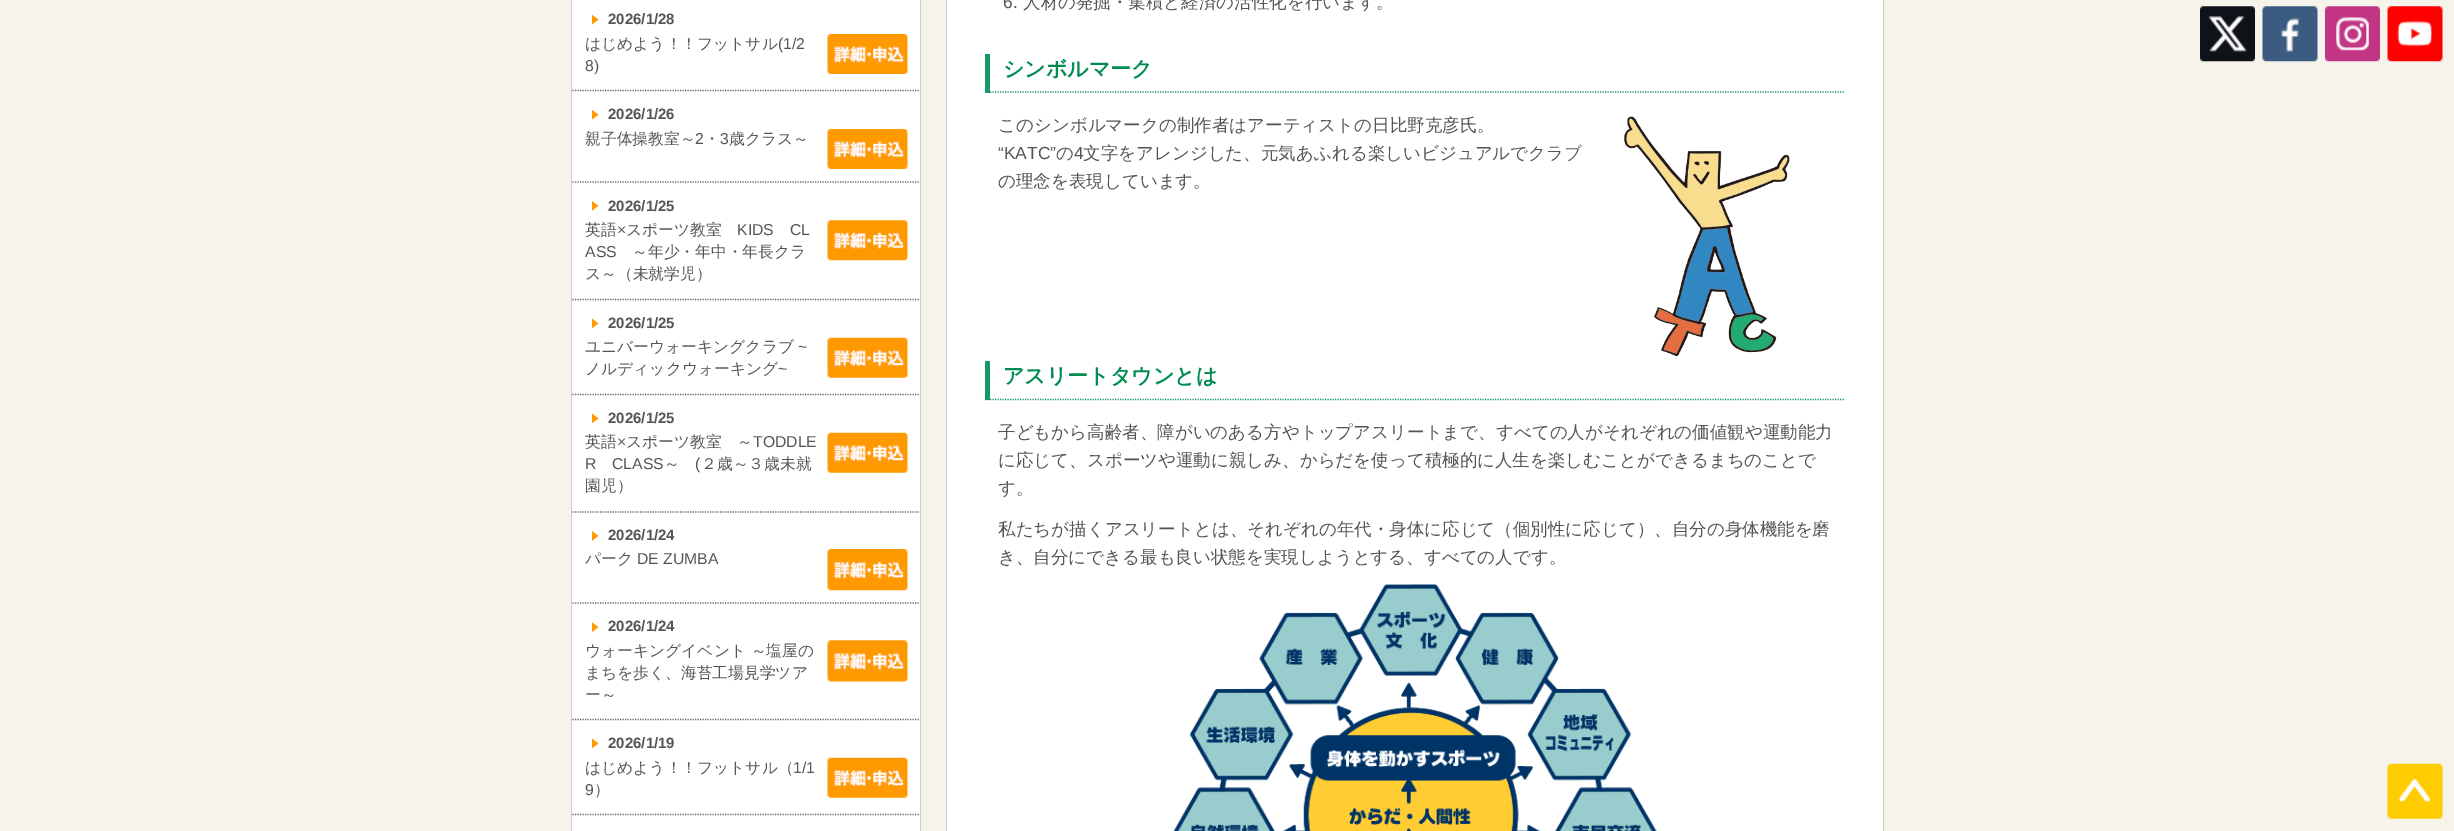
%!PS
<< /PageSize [2454 831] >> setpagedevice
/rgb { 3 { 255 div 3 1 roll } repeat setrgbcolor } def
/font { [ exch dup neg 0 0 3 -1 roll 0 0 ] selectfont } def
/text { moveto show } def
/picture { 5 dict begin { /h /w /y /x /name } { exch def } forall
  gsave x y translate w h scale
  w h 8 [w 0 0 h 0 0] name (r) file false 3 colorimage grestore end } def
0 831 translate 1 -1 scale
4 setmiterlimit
246 243 235 rgb
0 0 2454 831 rectfill
255 255 255 rgb
572 0 348 831 rectfill
204 204 204 rgb
920 0 1 831 rectfill
571 0 1 831 rectfill
102 102 102 rgb
1.2 setlinewidth
[1.25 1.25] 0 setdash
572.5 90.5 moveto 347.5 0 rlineto stroke
(img_01.rgb) 592 14 7 11 picture
(img_02.rgb) 827 34 81 40 picture
572.5 182 moveto 347.5 0 rlineto stroke
(img_01.rgb) 592 109 7 11 picture
(img_03.rgb) 827 129 81 40 picture
572.5 299.5 moveto 347.5 0 rlineto stroke
(img_04.rgb) 592 201 7 10 picture
(img_05.rgb) 827 220 81 41 picture
572.5 394.5 moveto 347.5 0 rlineto stroke
(img_06.rgb) 592 318 7 11 picture
(img_07.rgb) 827 337 81 41 picture
572.5 512 moveto 347.5 0 rlineto stroke
(img_08.rgb) 592 413 7 11 picture
(img_07.rgb) 827 432 81 41 picture
572.5 603 moveto 347.5 0 rlineto stroke
(img_04.rgb) 592 531 7 10 picture
(img_09.rgb) 827 549 81 42 picture
572.5 719.5 moveto 347.5 0 rlineto stroke
(img_10.rgb) 592 622 7 10 picture
(img_11.rgb) 827 640 81 42 picture
572.5 814.5 moveto 347.5 0 rlineto stroke
(img_06.rgb) 592 738 7 11 picture
(img_07.rgb) 827 757 81 41 picture
255 255 255 rgb
947 0 936 831 rectfill
204 204 204 rgb
1883 0 1 831 rectfill
946 0 1 831 rectfill
21 153 101 rgb
985 92 moveto 860 0 rlineto stroke
985 54 5 39 rectfill
(img_12.rgb) 1624 116 166 241 picture
985 399.5 moveto 860 0 rlineto stroke
985 361 5 39 rectfill
(img_13.rgb) 1173 584 484 247 picture
(img_14.rgb) 2200 6 55 56 picture
(img_15.rgb) 2262 6 56 56 picture
(img_16.rgb) 2325 6 55 56 picture
(img_17.rgb) 2387 6 56 56 picture
(img_18.rgb) 2387 763 56 56 picture
/LiberationSans-Bold 15 font
85 85 85 rgb
(2026/1/28) 608 24 text
/WenQuanYiZenHei-Medium 15.75 font
(はじめよう！！フットサル) 585 49 text
/LiberationSans-Regular 15.75 font
(\(1/2) 778 49 text
(8\)) 585 71 text
/LiberationSans-Bold 15 font
(2026/1/26) 608 119 text
/WenQuanYiZenHei-Medium 15.75 font
(親子体操教室～) 585 144 text
/LiberationSans-Regular 15.75 font
(2) 695 144 text
/WenQuanYiZenHei-Medium 15.75 font
(・) 704 144 text
/LiberationSans-Regular 15.75 font
(3) 720 144 text
/WenQuanYiZenHei-Medium 15.75 font
(歳クラス～) 729 144 text
/LiberationSans-Bold 15 font
(2026/1/25) 608 211 text
/WenQuanYiZenHei-Medium 15.75 font
(英語) 585 235 text
/LiberationSans-Regular 15.75 font
(×) 617 235 text
/WenQuanYiZenHei-Medium 15.75 font
(スポーツ教室) 626 235 text
/LiberationSans-Regular 15.75 font
(KIDS) 737 235 text
(CL) 790 235 text
(ASS) 585 257 text
/WenQuanYiZenHei-Medium 15.75 font
(～年少・年中・年長クラ) 632 257 text
(ス～（未就学児）) 585 279 text
/LiberationSans-Bold 15 font
(2026/1/25) 608 328 text
/WenQuanYiZenHei-Medium 15.75 font
(ユニバーウォーキングクラブ) 585 352 text
/LiberationSans-Regular 15.75 font
(~) 798 352 text
/WenQuanYiZenHei-Medium 15.75 font
(ノルディックウォーキング) 585 374 text
/LiberationSans-Regular 15.75 font
(~) 778 374 text
/LiberationSans-Bold 15 font
(2026/1/25) 608 423 text
/WenQuanYiZenHei-Medium 15.75 font
(英語) 585 447 text
/LiberationSans-Regular 15.75 font
(×) 617 447 text
/WenQuanYiZenHei-Medium 15.75 font
(スポーツ教室　～) 626 447 text
/LiberationSans-Regular 15.75 font
(TODDLE) 753 447 text
(R) 585 469 text
(CLASS) 612 469 text
/WenQuanYiZenHei-Medium 15.75 font
(～) 664 469 text
/LiberationSans-Regular 15.75 font
(\() 695 469 text
/WenQuanYiZenHei-Medium 15.75 font
(２歳～３歳未就) 701 469 text
(園児）) 585 491 text
/LiberationSans-Bold 15 font
(2026/1/24) 608 540 text
/WenQuanYiZenHei-Medium 15.75 font
(パーク) 585 564 text
/LiberationSans-Regular 15.75 font
(DE ZUMBA) 637 564 text
/LiberationSans-Bold 15 font
(2026/1/24) 608 631 text
/WenQuanYiZenHei-Medium 15.75 font
(ウォーキングイベント ～塩屋の) 585 656 text
(まちを歩く、海苔工場見学ツア) 585 678 text
(ー～) 585 700 text
/LiberationSans-Bold 15 font
(2026/1/19) 608 748 text
/WenQuanYiZenHei-Medium 15.75 font
(はじめよう！！フットサル（) 585 773 text
/LiberationSans-Regular 15.75 font
(1/1) 793 773 text
(9) 585 795 text
/WenQuanYiZenHei-Medium 15.75 font
(）) 594 795 text
/LiberationSans-Regular 17.5 font
(6.) 1003 8 text
/WenQuanYiZenHei-Medium 17.5 font
(人材の発掘・集積と経済の活性化を行います。) 1023 8 text
/WenQuanYiZenHei-Bold 21 font
0 139 80 rgb
(シンボルマーク) 1003 76 text
/WenQuanYiZenHei-Medium 17.5 font
85 85 85 rgb
(このシンボルマークの制作者はアーティストの日比野克彦氏。) 998 131 text
/LiberationSans-Regular 17.5 font
(“KATC”) 998 159 text
/WenQuanYiZenHei-Medium 17.5 font
(の) 1056 159 text
/LiberationSans-Regular 17.5 font
(4) 1074 159 text
/WenQuanYiZenHei-Medium 17.5 font
(文字をアレンジした、元気あふれる楽しいビジュアルでクラブ) 1083 159 text
(の理念を表現しています。) 998 187 text
/WenQuanYiZenHei-Bold 21 font
0 139 80 rgb
(アスリートタウンとは) 1003 383 text
/WenQuanYiZenHei-Medium 17.5 font
85 85 85 rgb
(子どもから高齢者、障がいのある方やトップアスリートまで、すべての人がそれぞれの価値観や運動能力) 998 438 text
(に応じて、スポーツや運動に親しみ、からだを使って積極的に人生を楽しむことができるまちのことで) 998 466 text
(す。) 998 494 text
(私たちが描くアスリートとは、それぞれの年代・身体に応じて（個別性に応じて）、自分の身体機能を磨) 998 535 text
(き、自分にできる最も良い状態を実現しようとする、すべての人です。) 998 563 text
showpage
